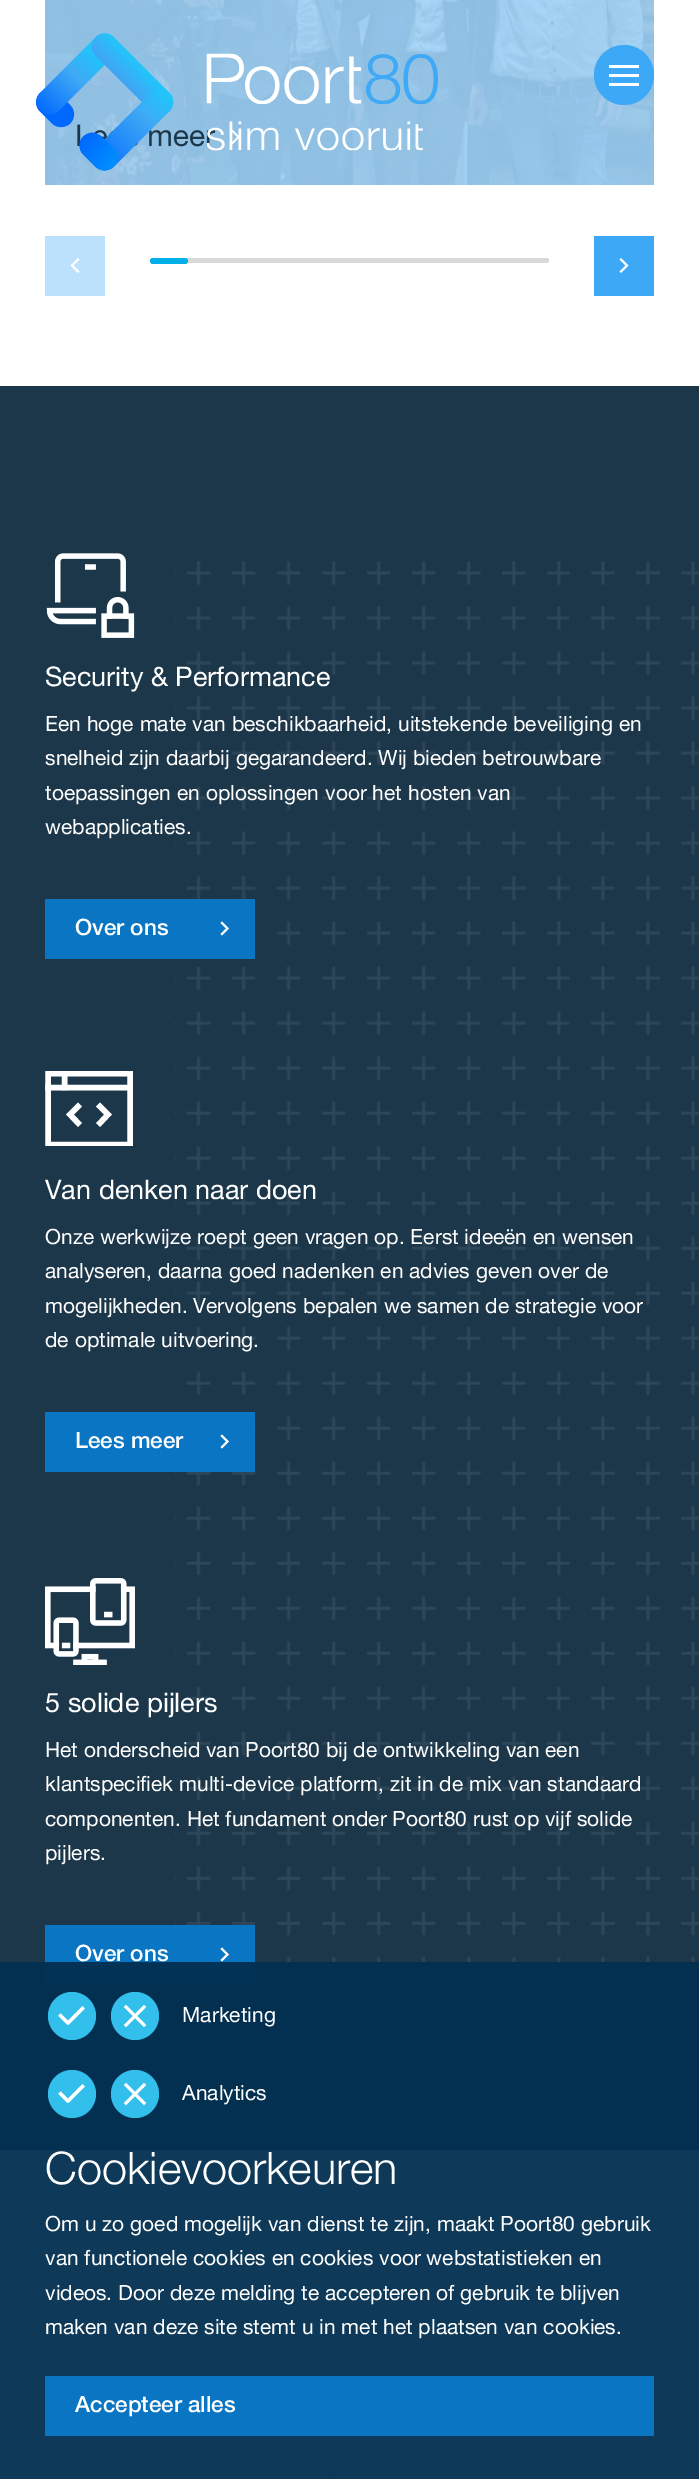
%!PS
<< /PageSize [699 2479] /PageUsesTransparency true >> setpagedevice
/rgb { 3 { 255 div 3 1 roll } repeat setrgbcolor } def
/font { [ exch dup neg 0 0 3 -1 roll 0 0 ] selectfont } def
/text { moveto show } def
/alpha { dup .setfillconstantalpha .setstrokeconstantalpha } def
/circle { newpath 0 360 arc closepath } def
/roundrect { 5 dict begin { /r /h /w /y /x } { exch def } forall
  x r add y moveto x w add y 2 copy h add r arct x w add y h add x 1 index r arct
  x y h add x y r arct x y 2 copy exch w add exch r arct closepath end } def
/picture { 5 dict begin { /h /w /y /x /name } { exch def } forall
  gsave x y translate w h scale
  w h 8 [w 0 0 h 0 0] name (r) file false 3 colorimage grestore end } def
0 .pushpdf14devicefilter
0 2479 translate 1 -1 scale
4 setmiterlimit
255 255 255 rgb
0 0 699 2479 rectfill
158 212 250 rgb
45 0 609 185 rectfill
(img_02.rgb) 45 0 609 185 picture
61 168 245 rgb
624 75 30 circle fill
255 255 255 rgb
609 65 30 3 rectfill
609 83 30 3 rectfill
609 74 30 3 rectfill
2 setlinewidth
2 setlinecap
232.5 131 moveto 6 6 rlineto -6 6 rlineto stroke
187 225 252 rgb
45 236 60 60 rectfill
255 255 255 rgb
78 271.5 moveto -6 -6 rlineto 6 -6 rlineto stroke
216 216 216 rgb
150 258 399 5 2.5 roundrect fill
0 175 231 rgb
150 258 38 6 3 roundrect fill
61 168 245 rgb
594 236 60 60 rectfill
255 255 255 rgb
621 259.5 moveto 6 6 rlineto -6 6 rlineto stroke
28 55 74 rgb
0 386 699 1764 rectfill
(img_03.rgb) 175 561 524 1588 picture
(img_04.rgb) 46 553 89 85 picture
10 117 194 rgb
45 899 210 60 rectfill
255 255 255 rgb
1.9 setlinewidth
222 923 moveto 5.5 5.5 rlineto -5.5 5.5 rlineto stroke
gsave
45 1071 90 75 rectclip
5.5 setlinewidth
48 1073.5 moveto 82 0 rlineto 0 71 rlineto -82 0 rlineto closepath stroke
grestore
5.5 setlinewidth
48 1087.5 moveto 82 0 rlineto stroke
gsave
45 1071 90 75 rectclip
64.5 1073.5 moveto 0 14 rlineto stroke
grestore
78 1106.5 moveto -8 8 rlineto 8 8.5 rlineto 100 1106.5 moveto 8 8 rlineto -8 8.5 rlineto stroke
10 117 194 rgb
45 1412 210 60 rectfill
255 255 255 rgb
1.9 setlinewidth
222 1436 moveto 5.5 5.5 rlineto -5.5 5.5 rlineto stroke
(img_05.rgb) 45 1578 90 87 picture
10 117 194 rgb
45 1925 210 60 rectfill
255 255 255 rgb
222 1949 moveto 5.5 5.5 rlineto -5.5 5.5 rlineto stroke
238 238 238 rgb
0 2150 699 329 rectfill
251 251 251 rgb
45 2436 609 43 rectfill
(img_06.rgb) 317 2478 25 1 picture
0.95 alpha
2 47 80 rgb
0 1962 699 517 rectfill
1 alpha
51 191 236 rgb
72 2016 24 circle fill
(img_07.rgb) 58 2006 27 19 picture
135 2016 24 circle fill
(img_08.rgb) 123 2004 24 24 picture
72 2094 24 circle fill
(img_07.rgb) 58 2084 27 19 picture
135 2094 24 circle fill
(img_08.rgb) 123 2082 24 24 picture
10 117 194 rgb
45 2376 609 60 rectfill
/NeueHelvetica-Regular 30 font
28 55 74 rgb
(mee) 147 146 text
(img_01.rgb) 36 33 402 138 picture
/NeueHelvetica-Regular 27 font
255 255 255 rgb
(Security & Performance) 45 686 text
/NeueHelvetica-Regular 21 font
(Een hoge mate van beschikbaarheid, uitstekende beveiliging en) 45 731 text
(snelheid zijn daarbij gegarandeerd. Wij bieden betrouwbare) 45 765 text
(toepassingen en oplossingen voor het hosten van) 45 800 text
(webapplicaties.) 45 834 text
/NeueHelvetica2-Regular 22.5 font
(Over ons) 75 935 text
/NeueHelvetica-Regular 27 font
(Van denken naar doen) 45 1199 text
/NeueHelvetica-Regular 21 font
(Onze werkwijze roept geen vragen op. Eerst ideeën en wensen) 45 1244 text
(analyseren, daarna goed nadenken en advies geven over de) 45 1278 text
(mogelijkheden. Vervolgens bepalen we samen de strategie voor) 45 1313 text
(de optimale uitvoering.) 45 1347 text
/NeueHelvetica2-Regular 22.5 font
(Lees meer) 75 1448 text
/NeueHelvetica-Regular 27 font
(5 solide pijlers) 45 1712 text
/NeueHelvetica-Regular 21 font
(Het onderscheid van Poort80 bij de ontwikkeling van een) 45 1757 text
(klantspecifiek multi-device platform, zit in de mix van standaard) 45 1791 text
(componenten. Het fundament onder Poort80 rust op vijf solide) 45 1826 text
(pijlers.) 45 1860 text
/NeueHelvetica2-Regular 22.5 font
(Over ons) 75 1961 text
/NeueHelvetica-Regular 21 font
(Marketing) 182 2022 text
(Analytics) 182 2100 text
/NeueHelvetica-Light 45 font
(Cookievoorkeuren) 45 2184 text
/NeueHelvetica-Regular 21 font
(Om u zo goed mogelijk van dienst te zijn, maakt Poort80 gebruik) 45 2231 text
(van functionele cookies en cookies voor webstatistieken en) 45 2265 text
(videos. Door deze melding te accepteren of gebruik te blijven) 45 2300 text
(maken van deze site stemt u in met het plaatsen van cookies.) 45 2334 text
/NeueHelvetica2-Regular 22.5 font
(Accepteer alles) 75 2412 text
.poppdf14devicefilter showpage
